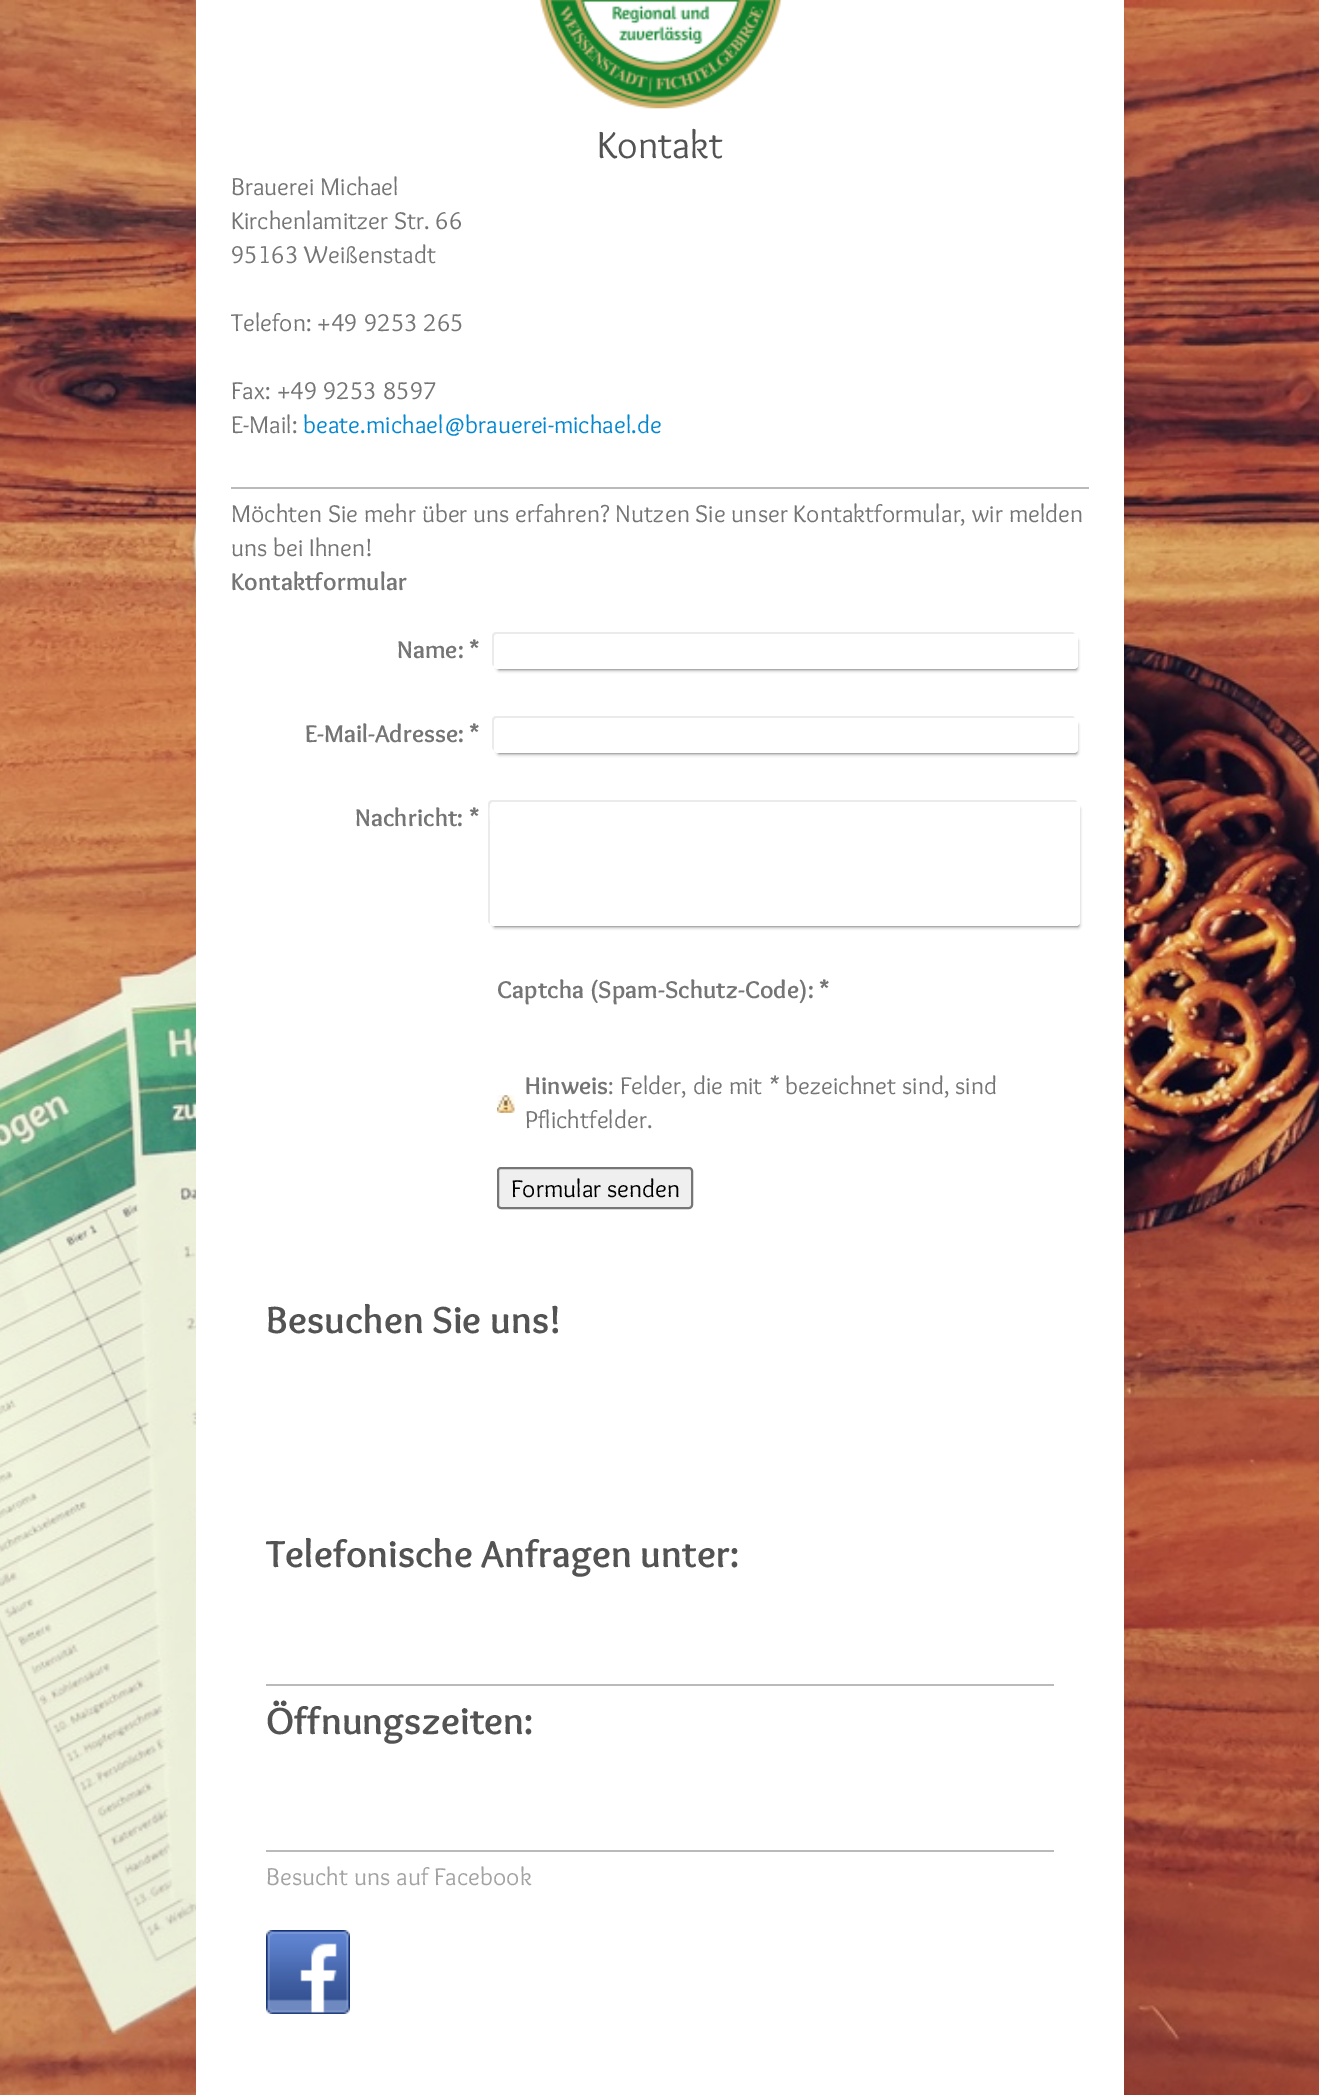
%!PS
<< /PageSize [1319 2095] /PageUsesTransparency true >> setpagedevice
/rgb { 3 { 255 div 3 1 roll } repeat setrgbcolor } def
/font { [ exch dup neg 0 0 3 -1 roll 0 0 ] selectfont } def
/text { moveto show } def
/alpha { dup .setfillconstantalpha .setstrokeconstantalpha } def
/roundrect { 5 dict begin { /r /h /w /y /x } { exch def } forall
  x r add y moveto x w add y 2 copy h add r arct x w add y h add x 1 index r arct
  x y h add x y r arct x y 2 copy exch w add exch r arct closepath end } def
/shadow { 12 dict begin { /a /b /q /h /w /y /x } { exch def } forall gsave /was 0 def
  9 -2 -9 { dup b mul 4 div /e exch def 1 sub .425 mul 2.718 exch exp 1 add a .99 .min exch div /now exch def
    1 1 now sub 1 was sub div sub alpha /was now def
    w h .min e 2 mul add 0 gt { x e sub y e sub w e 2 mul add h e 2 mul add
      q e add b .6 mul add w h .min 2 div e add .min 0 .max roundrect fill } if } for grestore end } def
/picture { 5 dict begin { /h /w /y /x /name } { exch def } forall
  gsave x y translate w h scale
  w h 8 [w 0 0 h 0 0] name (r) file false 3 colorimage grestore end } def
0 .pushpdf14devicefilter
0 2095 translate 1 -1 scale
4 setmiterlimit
255 255 255 rgb
0 0 1319 2095 rectfill
(img_01.rgb) 0 0 1319 2095 picture
196 0 928 2095 rectfill
(img_02.rgb) 539 0 243 109 picture
186 186 186 rgb
231 487 858 2 rectfill
235 235 235 rgb
496 632 moveto -2 0 -4 2 -4 4 rcurveto 0 27 rlineto 0 1 1 3 2 3 rcurveto 0 -24 rlineto 0 -3 -1 -8 3 -8 rcurveto 578 0 rlineto -1 -1 -2 -2 -3 -2 rcurveto closepath fill
0 0 0 rgb
499 641 577 28 0 2 0.8 shadow
255 255 255 rgb
494 634 584 35 4 roundrect fill
235 235 235 rgb
496 716 moveto -2 0 -4 2 -4 4 rcurveto 0 27 rlineto 0 1 1 3 2 3 rcurveto 0 -24 rlineto 0 -3 -1 -8 3 -8 rcurveto 578 0 rlineto -1 -1 -2 -2 -3 -2 rcurveto closepath fill
0 0 0 rgb
499 725 577 28 0 2 0.8 shadow
255 255 255 rgb
494 718 584 35 4 roundrect fill
235 235 235 rgb
492 800 moveto -2 0 -4 2 -4 4 rcurveto 0 116 rlineto 0 2 1 3 2 4 rcurveto 0 -99 rlineto 0 -8 -3 -23 4 -23 rcurveto 583 0 rlineto 0 -1 -2 -2 -3 -2 rcurveto closepath fill
0 0 0 rgb
495 809 583 117 0 2 0.8 shadow
255 255 255 rgb
490 802 590 124 4 roundrect fill
(img_03.rgb) 497 1095 18 18 picture
239 239 239 rgb
498 1168 194 40 3 roundrect gsave fill grestore
118 118 118 rgb
2 setlinewidth
stroke
186 186 186 rgb
266 1684 788 2 rectfill
266 1850 788 2 rectfill
(img_04.rgb) 266 1930 84 84 picture
/Overlock-Regular 39.25 font
83 83 83 rgb
(Kontakt) 597 158 text
/Overlock-Regular 25.2 font
117 117 117 rgb
(Brauerei Michael) 231 195 text
(Kirchenlamitzer Str. 66) 231 229 text
(95163 Weißenstadt) 231 263 text
(Telefon: +49 9253 265) 231 331 text
(Fax: +49 9253 8597) 231 399 text
(E-Mail:) 231 433 text
6 136 209 rgb
(beate.michael@brauerei-michael.de) 303 433 text
117 117 117 rgb
(Möchten Sie mehr über uns erfahren? Nutzen Sie unser Kontaktformular, wir melden) 231 522 text
(uns bei Ihnen!) 231 556 text
/Overlock-Bold 25.2 font
(Kontaktformular) 231 590 text
(Name: *) 397 658 text
(E-Mail-Adresse: *) 305 742 text
(Nachricht: *) 355 826 text
(Captcha \(Spam-Schutz-Code\): *) 497 998 text
(Hinweis) 525 1094 text
/Overlock-Regular 25.2 font
(: Felder, die mit) 608 1094 text
/Overlock-Italic 25.2 font
(*) 768 1094 text
/Overlock-Regular 25.2 font
(bezeichnet sind, sind) 785 1094 text
(Pflichtfelder.) 525 1128 text
0 0 0 rgb
(Formular senden) 511 1197 text
/Overlock-Bold 39.25 font
83 83 83 rgb
(Besuchen Sie uns!) 266 1333 text
(Telefonische Anfragen unter:) 266 1567 text
(Öffnungszeiten:) 266 1734 text
/Overlock-Regular 25.2 font
163 163 163 rgb
(Besucht uns auf Facebook) 266 1885 text
.poppdf14devicefilter showpage
